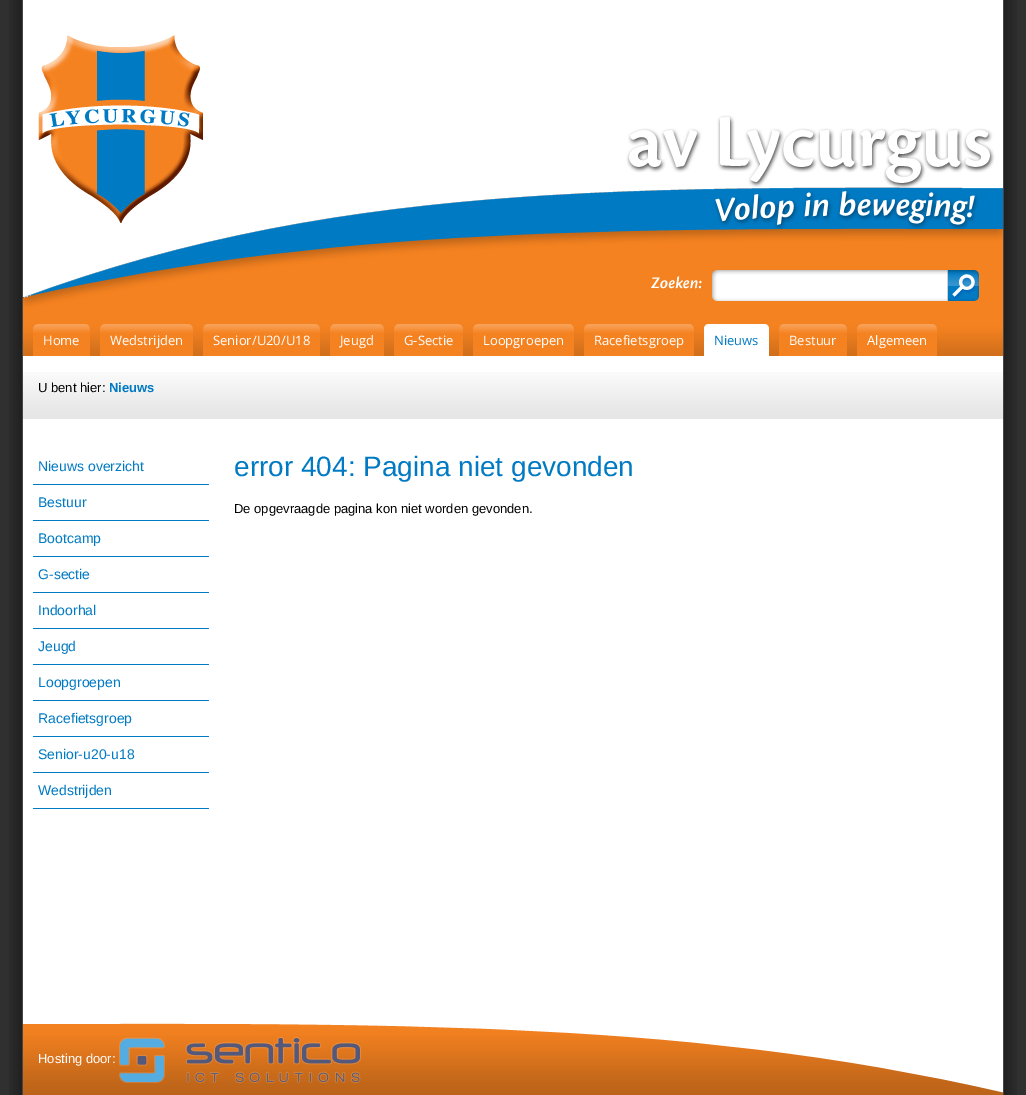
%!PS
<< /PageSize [1026 1095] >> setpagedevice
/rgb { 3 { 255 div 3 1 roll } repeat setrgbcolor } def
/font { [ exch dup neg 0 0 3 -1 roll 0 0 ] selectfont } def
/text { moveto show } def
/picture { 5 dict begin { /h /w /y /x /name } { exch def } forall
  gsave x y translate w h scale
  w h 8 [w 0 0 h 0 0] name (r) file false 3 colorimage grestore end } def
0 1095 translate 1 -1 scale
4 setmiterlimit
48 48 48 rgb
0 0 1026 1095 rectfill
(img_01.rgb) 9 0 1008 1095 picture
(img_02.rgb) 23 187 980 137 picture
(img_03.rgb) 38 35 165 188 picture
(img_04.rgb) 626 115 369 74 picture
(img_05.rgb) 651 276 51 13 picture
(img_06.rgb) 712 270 235 31 picture
(img_07.rgb) 947 270 32 31 picture
(img_08.rgb) 23 324 980 32 picture
(img_09.rgb) 33 324 57 32 picture
(img_10.rgb) 100 324 93 32 picture
(img_11.rgb) 203 324 117 32 picture
(img_12.rgb) 330 324 54 32 picture
(img_13.rgb) 394 324 69 32 picture
(img_14.rgb) 473 324 101 32 picture
(img_15.rgb) 584 324 110 32 picture
255 255 255 rgb
709 324 moveto 55 0 rlineto 3 0 5 2 5 5 rcurveto 0 27 rlineto -65 0 rlineto 0 -27 rlineto 0 -3 2 -5 5 -5 rcurveto closepath fill
(img_16.rgb) 779 324 68 32 picture
(img_17.rgb) 857 324 80 32 picture
(img_18.rgb) 23 372 980 47 picture
0 122 195 rgb
33 484 176 1 rectfill
33 520 176 1 rectfill
33 556 176 1 rectfill
33 592 176 1 rectfill
33 628 176 1 rectfill
33 664 176 1 rectfill
33 700 176 1 rectfill
33 736 176 1 rectfill
33 772 176 1 rectfill
33 808 176 1 rectfill
(img_19.rgb) 23 1023 980 72 picture
(img_20.rgb) 119 1037 242 46 picture
/OpenSans-Regular 13 font
255 255 255 rgb
(Home) 43 345 text
(Wedstrijden) 110 345 text
(Senior/U20/U18) 213 345 text
(Jeugd) 340 345 text
(G-Sectie) 404 345 text
(Loopgroepen) 483 345 text
(Racefietsgroep) 594 345 text
0 122 195 rgb
(Nieuws) 714 345 text
255 255 255 rgb
(Bestuur) 789 345 text
(Algemeen) 867 345 text
/LiberationSans-Regular 13 font
0 0 0 rgb
(U bent hier:) 38 392 text
/LiberationSans-Bold 13 font
0 122 195 rgb
(Nieuws) 109 392 text
/LiberationSans-Regular 14 font
(Nieuws overzicht) 38 471 text
(Bestuur) 38 507 text
(Bootcamp) 38 543 text
(G-sectie) 38 579 text
(Indoorhal) 38 615 text
(Jeugd) 38 651 text
(Loopgroepen) 38 687 text
(Racefietsgroep) 38 723 text
(Senior-u20-u18) 38 759 text
(Wedstrijden) 38 795 text
/LiberationSans-Regular 28 font
(error 404: Pagina niet gevonden) 234 476 text
/LiberationSans-Regular 13 font
0 0 0 rgb
(De opgevraagde pagina kon niet worden gevonden.) 234 513 text
255 255 255 rgb
(Hosting door:) 38 1063 text
showpage
